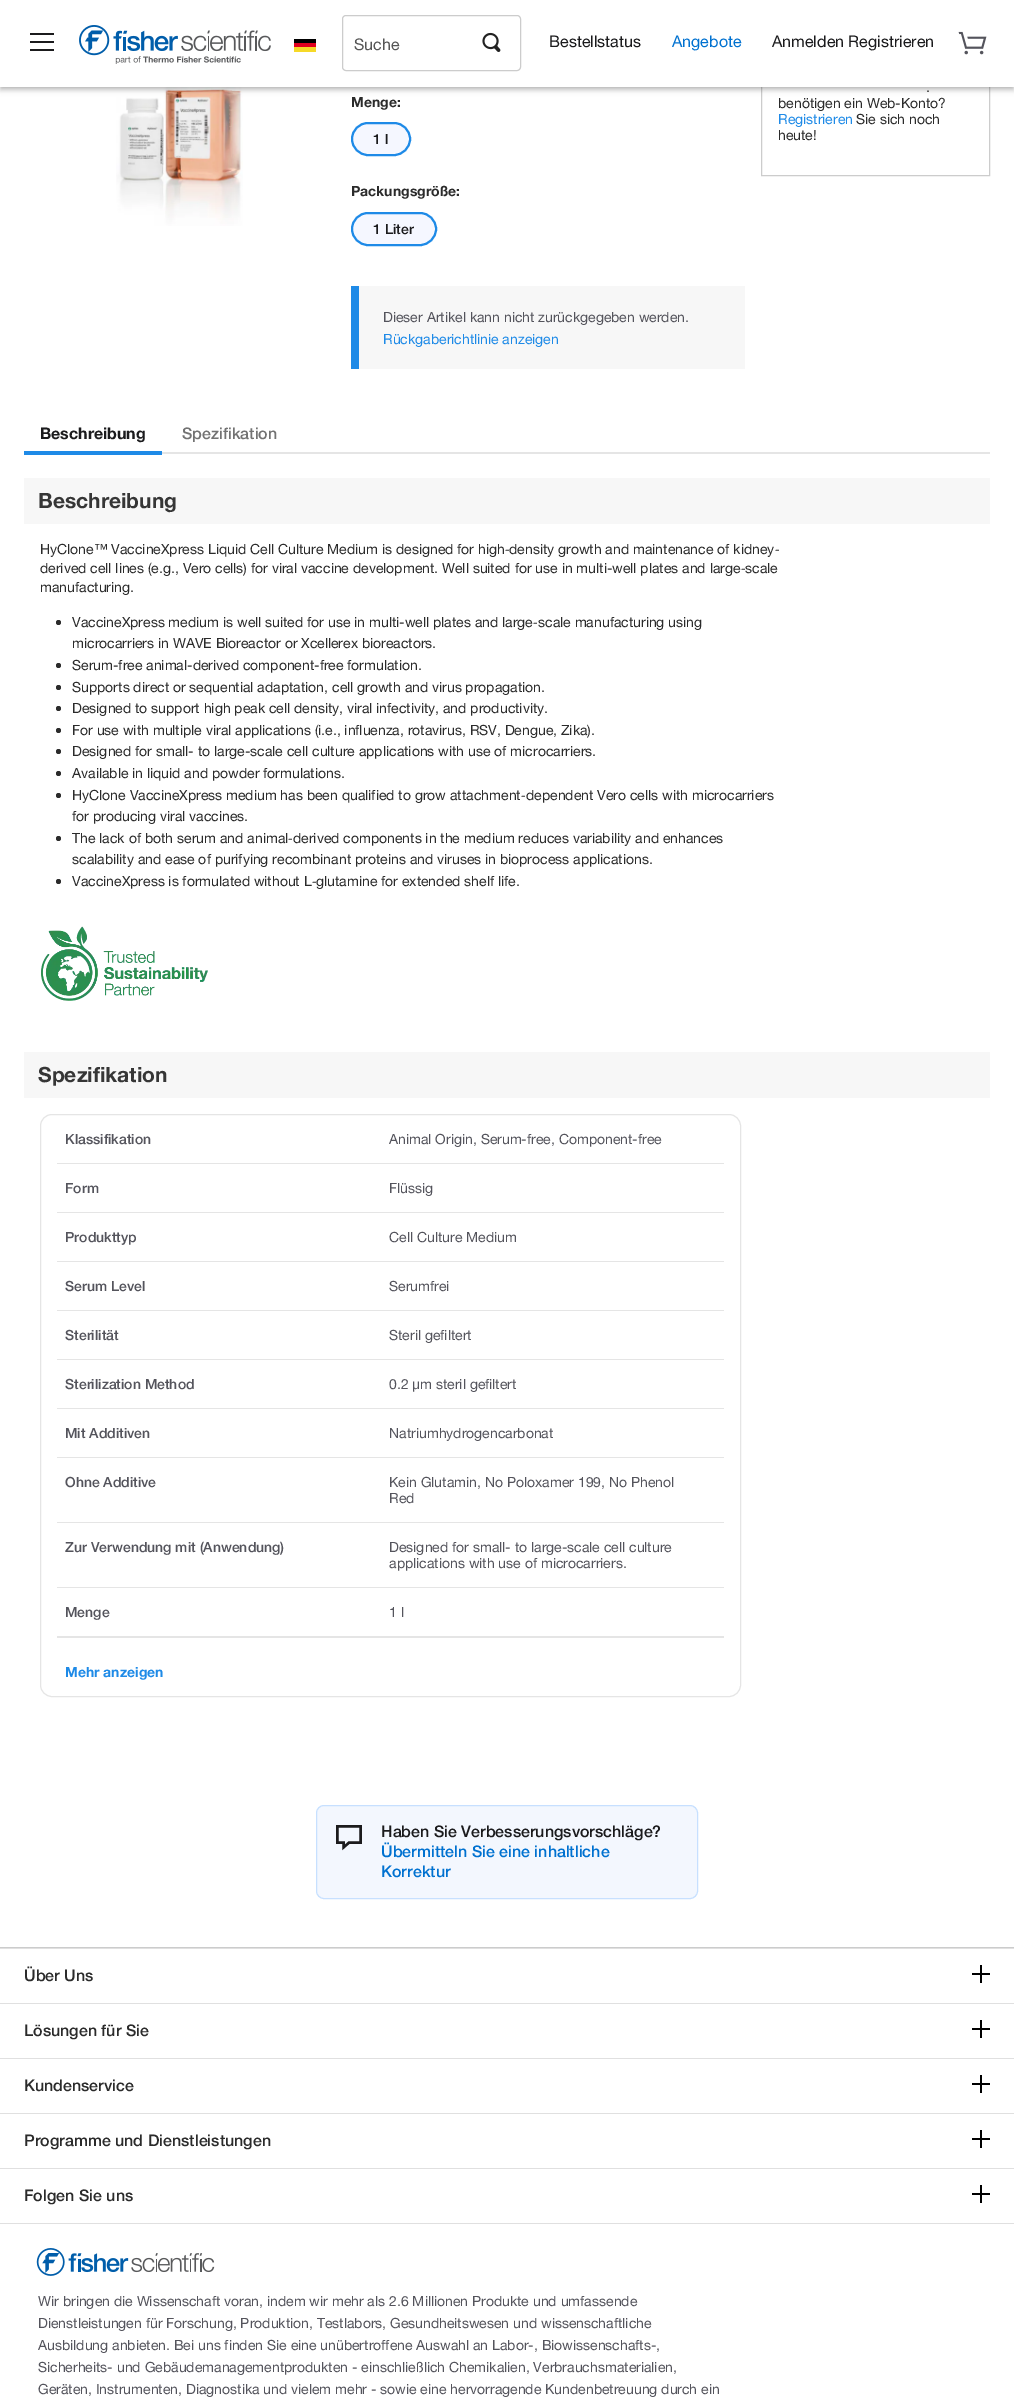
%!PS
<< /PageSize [1014 2398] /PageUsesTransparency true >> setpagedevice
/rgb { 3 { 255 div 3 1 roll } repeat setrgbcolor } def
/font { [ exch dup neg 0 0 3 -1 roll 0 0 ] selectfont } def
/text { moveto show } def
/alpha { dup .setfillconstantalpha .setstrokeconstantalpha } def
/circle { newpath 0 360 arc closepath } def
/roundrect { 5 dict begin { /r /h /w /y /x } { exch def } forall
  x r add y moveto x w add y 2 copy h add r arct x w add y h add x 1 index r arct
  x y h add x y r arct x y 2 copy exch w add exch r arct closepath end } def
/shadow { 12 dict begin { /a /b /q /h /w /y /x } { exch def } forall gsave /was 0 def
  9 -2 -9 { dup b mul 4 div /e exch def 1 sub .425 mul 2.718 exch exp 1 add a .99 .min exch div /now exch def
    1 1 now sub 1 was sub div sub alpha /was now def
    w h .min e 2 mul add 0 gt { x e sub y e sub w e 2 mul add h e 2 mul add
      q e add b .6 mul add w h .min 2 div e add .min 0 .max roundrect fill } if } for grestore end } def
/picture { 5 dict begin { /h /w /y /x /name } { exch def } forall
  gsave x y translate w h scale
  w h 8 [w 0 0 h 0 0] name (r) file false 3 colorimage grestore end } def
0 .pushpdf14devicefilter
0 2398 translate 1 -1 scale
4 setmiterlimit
255 255 255 rgb
0 0 1014 2398 rectfill
(img_04.rgb) 116 87 127 139 picture
204 204 204 rgb
761.5 -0.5 228 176 rectstroke
0 0 0 rgb
0 4 1014 87 0 2.5 0.14 shadow
1 3 1012 85 0 2 0.2 shadow
255 255 255 rgb
0 0 1014 87 rectfill
27 27 29 rgb
30 41 24 2 rectfill
30 33 24 2 rectfill
30 49 24 2 rectfill
(img_01.rgb) 79 25 192 39 picture
246 217 40 rgb
294 47 22 5 rectfill
225 0 31 rgb
294 43 22 4 rectfill
0 0 0 rgb
294 39 22 4 rectfill
204 204 204 rgb
342.5 15.5 178 55 3.5 roundrect stroke
(img_02.rgb) 482 32 19 20 picture
(img_03.rgb) 958 31 29 24 picture
245 247 255 rgb
352 123 58 32 16 roundrect gsave fill grestore
30 138 231 rgb
2 setlinewidth
stroke
245 247 255 rgb
352 213 84 32 16 roundrect gsave fill grestore
30 138 231 rgb
stroke
247 247 247 rgb
359 286 386 83 rectfill
30 138 231 rgb
351 286 8 83 rectfill
229 229 229 rgb
162 452 828 2 rectfill
30 138 231 rgb
24 451 138 4 rectfill
247 247 247 rgb
24 478 966 46 rectfill
43 43 43 rgb
58.5 622.5 2.5 circle fill
58.5 665.5 2.5 circle fill
58.5 687.5 2.5 circle fill
58.5 708.5 2.5 circle fill
58.5 730.5 2.5 circle fill
58.5 751.5 2.5 circle fill
58.5 773.5 2.5 circle fill
58.5 795.5 2.5 circle fill
58.5 838.5 2.5 circle fill
58.5 881.5 2.5 circle fill
(img_05.rgb) 41 926 167 75 picture
247 247 247 rgb
24 1052 966 46 rectfill
229 229 229 rgb
1 setlinewidth
40.5 1114.5 700 582 11.5 roundrect stroke
57 1163 667 1 rectfill
57 1212 667 1 rectfill
57 1261 667 1 rectfill
57 1310 667 1 rectfill
57 1359 667 1 rectfill
57 1408 667 1 rectfill
57 1457 667 1 rectfill
57 1522 667 1 rectfill
57 1587 667 1 rectfill
57 1636 667 2 rectfill
243 247 254 rgb
316.5 1805.5 381 93 7.5 roundrect gsave fill grestore
199 224 255 rgb
stroke
(img_06.rgb) 336 1825 26 26 picture
204 204 204 rgb
0 1947 1014 1 rectfill
224 224 224 rgb
0 1948 1014 1 rectfill
0 2003 1014 1 rectfill
0 0 0 rgb
980 1965 2 18 rectfill
972 1973 18 2 rectfill
224 224 224 rgb
0 2058 1014 1 rectfill
0 0 0 rgb
980 2020 2 18 rectfill
972 2028 18 2 rectfill
224 224 224 rgb
0 2113 1014 1 rectfill
0 0 0 rgb
980 2075 2 18 rectfill
972 2083 18 2 rectfill
224 224 224 rgb
0 2168 1014 1 rectfill
0 0 0 rgb
980 2130 2 18 rectfill
972 2138 18 2 rectfill
224 224 224 rgb
0 2223 1014 1 rectfill
0 0 0 rgb
980 2185 2 18 rectfill
972 2193 18 2 rectfill
(img_07.rgb) 36 2248 179 28 picture
/HelveticaNeue-Regular 16 font
86 86 86 rgb
(Suche) 354 50 text
27 27 29 rgb
(Bestellstatus) 549 47 text
0 113 208 rgb
(Angebote) 672 47 text
27 27 29 rgb
(Anmelden Registrieren) 772 47 text
/HelveticaNeue-Bold 14 font
43 43 43 rgb
(Menge:) 351 107 text
/HelveticaNeue-Medium 14 font
27 27 29 rgb
(1 l) 373 144 text
/HelveticaNeue-Bold 14 font
43 43 43 rgb
(Packungsgröße:) 351 196 text
/HelveticaNeue-Medium 14 font
27 27 29 rgb
(1 Liter) 373 234 text
/HelveticaNeue-Regular 14 font
84 84 92 rgb
(Dieser Artikel kann nicht zurückgegeben werden.) 383 322 text
30 138 231 rgb
(Rückgaberichtlinie anzeigen) 383 344 text
43 43 43 rgb
(.) 926 92 text
(benötigen ein Web-Konto?) 778 108 text
30 138 231 rgb
(Registrieren) 778 124 text
43 43 43 rgb
(Sie sich noch) 856 124 text
(heute!) 778 140 text
/HelveticaNeue-Bold 16 font
27 27 29 rgb
(Beschreibung) 40 439 text
/HelveticaNeue-Medium 16 font
115 115 115 rgb
(Spezifikation) 182 439 text
/HelveticaNeue-Bold 21 font
54 54 54 rgb
(Beschreibung) 38 508 text
/HelveticaNeue-Regular 14 font
43 43 43 rgb
(HyClone™ VaccineXpress Liquid Cell Culture Medium is designed for high) 40 554 text
/LiberationSans-Regular 14 font
(‐) 505 554 text
/HelveticaNeue-Regular 14 font
(density growth and maintenance of kidney) 509 554 text
/LiberationSans-Regular 14 font
(‐) 775 554 text
/HelveticaNeue-Regular 14 font
(derived cell lines \(e.g., Vero cells\) for viral vaccine development. Well suited for use in multi-well plates and large) 40 573 text
/LiberationSans-Regular 14 font
(‐) 741 573 text
/HelveticaNeue-Regular 14 font
(scale) 745 573 text
(manufacturing.) 40 592 text
(VaccineXpress medium is well suited for use in multi-well plates and large) 72 627 text
/LiberationSans-Regular 14 font
(‐) 533 627 text
/HelveticaNeue-Regular 14 font
(scale manufacturing using) 538 627 text
(microcarriers in WAVE Bioreactor or Xcellerex bioreactors.) 72 648 text
(Serum-free animal-derived component-free formulation.) 72 670 text
(Supports direct or sequential adaptation, cell growth and virus propagation.) 72 692 text
(Designed to support high peak cell density, viral infectivity, and productivity.) 72 713 text
(For use with multiple viral applications \(i.e., influenza, rotavirus, RSV, Dengue, Zika\).) 72 735 text
(Designed for small- to large-scale cell culture applications with use of microcarriers.) 72 756 text
(Available in liquid and powder formulations.) 72 778 text
(HyClone VaccineXpress medium has been qualified to grow attachment) 72 800 text
/LiberationSans-Regular 14 font
(‐) 521 800 text
/HelveticaNeue-Regular 14 font
(dependent Vero cells with microcarriers) 526 800 text
(for producing viral vaccines.) 72 821 text
(The lack of both serum and animal) 72 843 text
/LiberationSans-Regular 14 font
(‐) 288 843 text
/HelveticaNeue-Regular 14 font
(derived components in the medium reduces variability and enhances) 293 843 text
(scalability and ease of purifying recombinant proteins and viruses in bioprocess applications.) 72 864 text
(VaccineXpress is formulated without L) 72 886 text
/LiberationSans-Regular 14 font
(‐) 312 886 text
/HelveticaNeue-Regular 14 font
(glutamine for extended shelf life.) 316 886 text
/HelveticaNeue-Bold 21 font
54 54 54 rgb
(Spezifikation) 38 1082 text
/HelveticaNeue-Medium 14 font
84 84 92 rgb
(Klassifikation) 65 1144 text
/HelveticaNeue-Regular 14 font
(Animal Origin, Serum-free, Component-free) 389 1144 text
/HelveticaNeue-Medium 14 font
(Form) 65 1193 text
/HelveticaNeue-Regular 14 font
(Flüssig) 389 1193 text
/HelveticaNeue-Medium 14 font
(Produkttyp) 65 1242 text
/HelveticaNeue-Regular 14 font
(Cell Culture Medium) 389 1242 text
/HelveticaNeue-Medium 14 font
(Serum Level) 65 1291 text
/HelveticaNeue-Regular 14 font
(Serumfrei) 389 1291 text
/HelveticaNeue-Medium 14 font
(Sterilität) 65 1340 text
/HelveticaNeue-Regular 14 font
(Steril gefiltert) 389 1340 text
/HelveticaNeue-Medium 14 font
(Sterilization Method) 65 1389 text
/HelveticaNeue-Regular 14 font
(0.2) 389 1389 text
/LiberationSans-Regular 14 font
(μ) 412 1389 text
/HelveticaNeue-Regular 14 font
(m steril gefiltert) 420 1389 text
/HelveticaNeue-Medium 14 font
(Mit Additiven) 65 1438 text
/HelveticaNeue-Regular 14 font
(Natriumhydrogencarbonat) 389 1438 text
/HelveticaNeue-Medium 14 font
(Ohne Additive) 65 1487 text
/HelveticaNeue-Regular 14 font
(Kein Glutamin, No Poloxamer 199, No Phenol) 389 1487 text
(Red) 389 1503 text
/HelveticaNeue-Medium 14 font
(Zur Verwendung mit \(Anwendung\)) 65 1552 text
/HelveticaNeue-Regular 14 font
(Designed for small- to large-scale cell culture) 389 1552 text
(applications with use of microcarriers.) 389 1568 text
/HelveticaNeue-Medium 14 font
(Menge) 65 1617 text
/HelveticaNeue-Regular 14 font
(1 l) 389 1617 text
/HelveticaNeue-Bold 14 font
30 138 231 rgb
(Mehr anzeigen) 65 1677 text
/HelveticaNeue-Medium 16 font
27 27 29 rgb
(Haben Sie Verbesserungsvorschläge?) 381 1837 text
0 113 208 rgb
(Übermitteln Sie eine inhaltliche) 381 1857 text
(Korrektur) 381 1877 text
43 43 43 rgb
(Über Uns) 24 1981 text
(Lösungen für Sie) 24 2036 text
(Kundenservice) 24 2091 text
(Programme und Dienstleistungen) 24 2146 text
(Folgen Sie uns) 24 2201 text
/HelveticaNeue-Regular 14 font
84 84 92 rgb
(Wir bringen die Wissenschaft voran, indem wir mehr als 2.6 Millionen Produkte und umfassende) 38 2306 text
(Dienstleistungen für Forschung, Produktion, Testlabors, Gesundheitswesen und wissenschaftliche) 38 2328 text
(Ausbildung anbieten. Bei uns finden Sie eine unübertroffene Auswahl an Labor-, Biowissenschafts-,) 38 2350 text
(Sicherheits- und Gebäudemanagementprodukten - einschließlich Chemikalien, Verbrauchsmaterialien,) 38 2372 text
(Geräten, Instrumenten, Diagnostika und vielem mehr - sowie eine hervorragende Kundenbetreuung durch ein) 38 2394 text
.poppdf14devicefilter showpage
